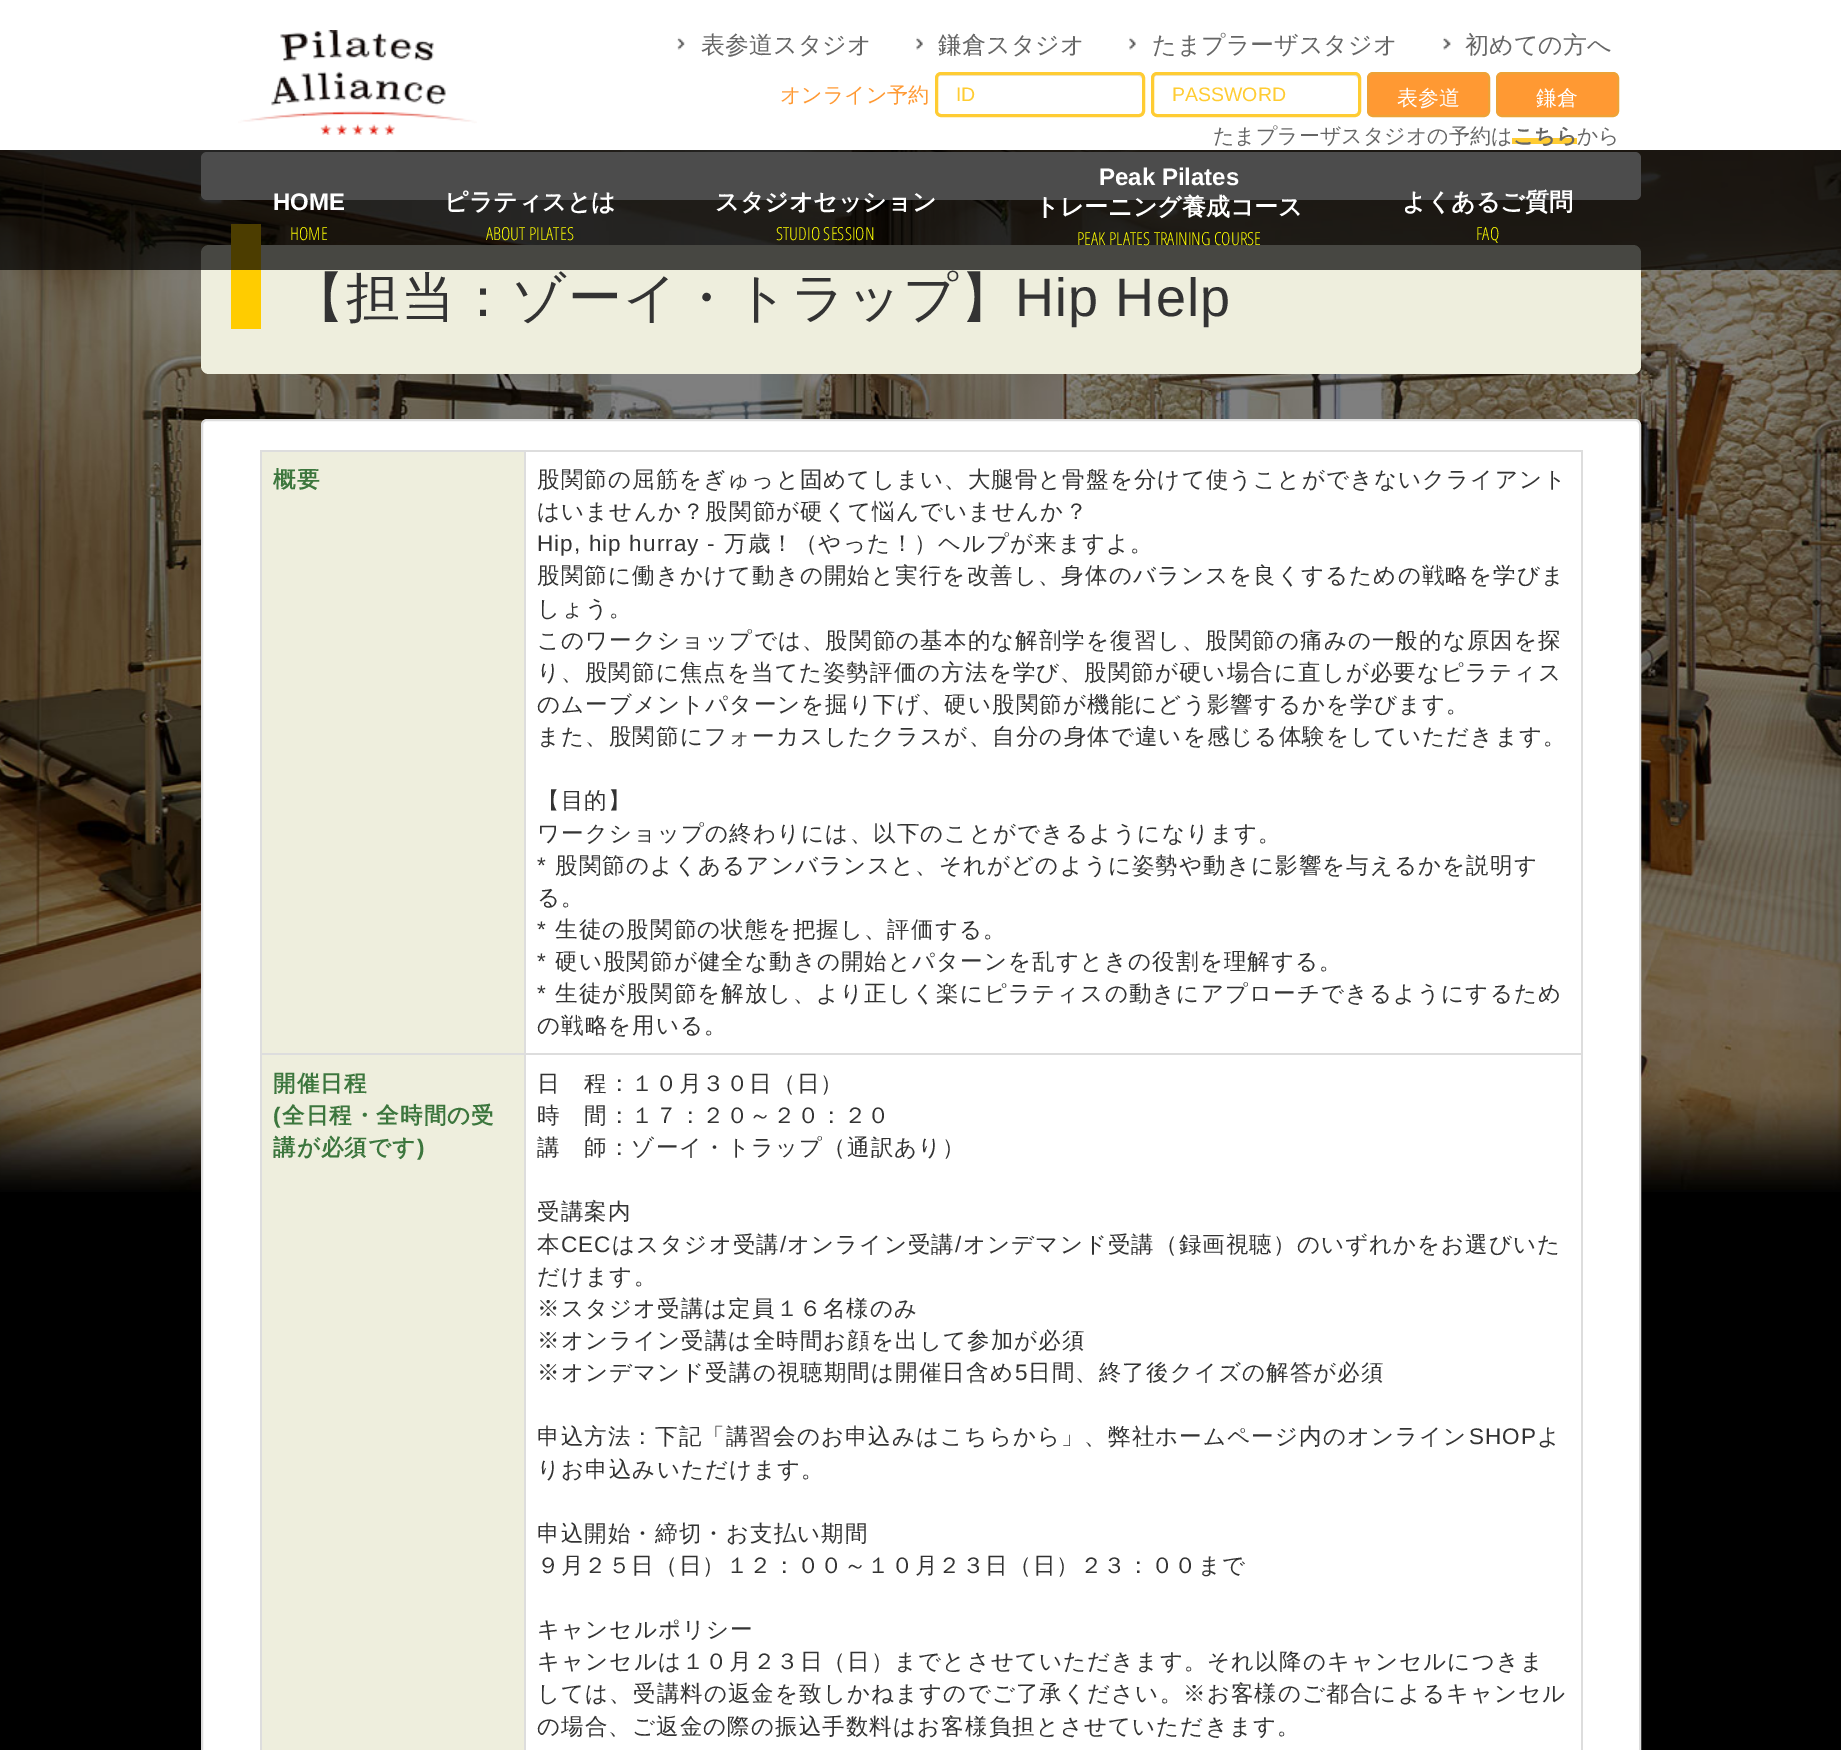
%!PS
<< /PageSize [1841 1750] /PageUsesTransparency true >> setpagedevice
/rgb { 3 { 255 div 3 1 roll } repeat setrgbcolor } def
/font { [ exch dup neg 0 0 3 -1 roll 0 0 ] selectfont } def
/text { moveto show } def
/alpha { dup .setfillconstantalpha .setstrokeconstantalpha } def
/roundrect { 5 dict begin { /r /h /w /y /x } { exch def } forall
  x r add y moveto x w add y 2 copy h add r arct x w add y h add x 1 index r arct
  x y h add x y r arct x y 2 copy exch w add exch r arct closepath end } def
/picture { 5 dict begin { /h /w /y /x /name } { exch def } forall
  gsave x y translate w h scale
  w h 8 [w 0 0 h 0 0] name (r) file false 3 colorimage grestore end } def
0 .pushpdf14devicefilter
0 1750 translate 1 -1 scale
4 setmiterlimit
0 0 0 rgb
0 0 1841 1750 rectfill
(img_06.rgb) 0 150 1841 1042 picture
255 255 255 rgb
201 152 1440 48 6 roundrect fill
238 238 221 rgb
201 245 1440 129 8 roundrect fill
255 204 0 rgb
231 224 30 105 rectfill
0.7 alpha
0 0 0 rgb
0 150 1841 120 rectfill
1 alpha
255 255 255 rgb
0 0 1841 150 rectfill
(img_01.rgb) 238 30 239 105 picture
(img_02.rgb) 677 37 8 13 picture
(img_03.rgb) 916 37 7 13 picture
(img_04.rgb) 1129 37 7 13 picture
(img_05.rgb) 1443 37 8 13 picture
236 236 236 rgb
940 76 moveto 198 0 rlineto 2 0 4 2 4 4 rcurveto 0 -2 0 -4 -2 -5 rcurveto -199 0 rlineto -3 0 -3 3 -3 5 rcurveto 0 -2 1 -4 2 -4 rcurveto closepath fill
255 204 51 rgb
3 setlinewidth
936.5 73.5 207 42 4.5 roundrect stroke
236 236 236 rgb
1156 76 moveto 198 0 rlineto 2 0 4 2 4 4 rcurveto 0 -2 0 -4 -2 -5 rcurveto -199 0 rlineto -3 0 -3 3 -3 5 rcurveto 0 -2 1 -4 2 -4 rcurveto closepath fill
255 204 51 rgb
1152.5 73.5 207 42 4.5 roundrect stroke
255 153 51 rgb
1368 73 121 43 5 roundrect gsave fill grestore
238 162 54 rgb
2 setlinewidth
stroke
255 153 51 rgb
1497 73 121 43 5 roundrect gsave fill grestore
238 162 54 rgb
stroke
255 204 51 rgb
1512 138 65 6 rectfill
255 255 255 rgb
202 420 1438 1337 5 roundrect gsave fill grestore
221 221 221 rgb
stroke
260 450 1323 2 rectfill
1581 450 2 1300 rectfill
260 450 2 1300 rectfill
238 238 221 rgb
262 452 262 601 rectfill
221 221 221 rgb
524 1053 1059 2 rectfill
524 1053 2 697 rectfill
260 1053 265 2 rectfill
524 450 2 605 rectfill
238 238 221 rgb
262 1055 262 695 rectfill
/WenQuanYiZenHei-Medium 24 font
102 102 102 rgb
(表参道スタジオ) 701 53 text
(鎌倉スタジオ) 938 53 text
(たまプラーザスタジオ) 1152 53 text
(初めての方へ) 1465 53 text
/WenQuanYiZenHei-Medium 21 font
255 153 51 rgb
(オンライン予約) 780 102 text
/LiberationSans-Regular 19.5 font
255 204 51 rgb
(ID) 956 101 text
(PASSWORD) 1172 101 text
/WenQuanYiZenHei-Medium 21 font
255 255 255 rgb
(表参道) 1397 105 text
(鎌倉) 1536 105 text
102 102 102 rgb
(たまプラーザスタジオの予約は) 1213 143 text
/WenQuanYiZenHei-Bold 21 font
(こちら) 1513 143 text
/WenQuanYiZenHei-Medium 21 font
(から) 1577 143 text
/LiberationSans-Bold 24 font
255 255 255 rgb
(HOME) 273 210 text
/OpenSansCondensed-Light 18 font
255 255 0 rgb
(HOME) 290 240 text
/WenQuanYiZenHei-Bold 24 font
255 255 255 rgb
(ピラティスとは) 444 210 text
/OpenSansCondensed-Light 18 font
255 255 0 rgb
(ABOUT PILATES) 486 240 text
/WenQuanYiZenHei-Bold 24 font
255 255 255 rgb
(スタジオセッション) 715 210 text
/OpenSansCondensed-Light 18 font
255 255 0 rgb
(STUDIO SESSION) 776 240 text
/LiberationSans-Bold 24 font
255 255 255 rgb
(Peak Pilates) 1099 185 text
/WenQuanYiZenHei-Bold 24 font
(トレーニング養成コース) 1035 215 text
/OpenSansCondensed-Light 18 font
255 255 0 rgb
(PEAK PLATES TRAINING COURSE) 1077 245 text
/WenQuanYiZenHei-Bold 24 font
255 255 255 rgb
(よくあるご質問) 1402 210 text
/OpenSansCondensed-Light 18 font
255 255 0 rgb
(FAQ) 1476 240 text
/WenQuanYiZenHei-Medium 54 font
51 51 51 rgb
291 316 moveto 1.1 0 (【担当：ゾーイ・トラップ】) ashow
/LiberationSans-Regular 54 font
1015 316 moveto 1.1 0 (Hip Help) ashow
/WenQuanYiZenHei-Bold 22.5 font
60 118 61 rgb
273 487 moveto 1.1 0 (概要) ashow
/WenQuanYiZenHei-Medium 22.5 font
51 51 51 rgb
537 487 moveto 1.1 0 (股関節の屈筋をぎゅっと固めてしまい、大腿骨と骨盤を分けて使うことができないクライアント) ashow
537 519 moveto 1.1 0 (はいませんか？股関節が硬くて悩んでいませんか？) ashow
/LiberationSans-Regular 22.5 font
537 551 moveto 1.1 0 (Hip, hip hurray -) ashow
/WenQuanYiZenHei-Medium 22.5 font
724 551 moveto 1.1 0 (万歳！（やった！）ヘルプが来ますよ。) ashow
537 583 moveto 1.1 0 (股関節に働きかけて動きの開始と実行を改善し、身体のバランスを良くするための戦略を学びま) ashow
537 616 moveto 1.1 0 (しょう。) ashow
537 648 moveto 1.1 0 (このワークショップでは、股関節の基本的な解剖学を復習し、股関節の痛みの一般的な原因を探) ashow
537 680 moveto 1.1 0 (り、股関節に焦点を当てた姿勢評価の方法を学び、股関節が硬い場合に直しが必要なピラティス) ashow
537 712 moveto 1.1 0 (のムーブメントパターンを掘り下げ、硬い股関節が機能にどう影響するかを学びます。) ashow
537 744 moveto 1.1 0 (また、股関節にフォーカスしたクラスが、自分の身体で違いを感じる体験をしていただきます。) ashow
537 808 moveto 1.1 0 (【目的】) ashow
537 841 moveto 1.1 0 (ワークショップの終わりには、以下のことができるようになります。) ashow
/LiberationSans-Regular 22.5 font
537 873 moveto 1.1 0 (*) ashow
/WenQuanYiZenHei-Medium 22.5 font
555 873 moveto 1.1 0 (股関節のよくあるアンバランスと、それがどのように姿勢や動きに影響を与えるかを説明す) ashow
537 905 moveto 1.1 0 (る。) ashow
/LiberationSans-Regular 22.5 font
537 937 moveto 1.1 0 (*) ashow
/WenQuanYiZenHei-Medium 22.5 font
555 937 moveto 1.1 0 (生徒の股関節の状態を把握し、評価する。) ashow
/LiberationSans-Regular 22.5 font
537 969 moveto 1.1 0 (*) ashow
/WenQuanYiZenHei-Medium 22.5 font
555 969 moveto 1.1 0 (硬い股関節が健全な動きの開始とパターンを乱すときの役割を理解する。) ashow
/LiberationSans-Regular 22.5 font
537 1001 moveto 1.1 0 (*) ashow
/WenQuanYiZenHei-Medium 22.5 font
555 1001 moveto 1.1 0 (生徒が股関節を解放し、より正しく楽にピラティスの動きにアプローチできるようにするため) ashow
537 1033 moveto 1.1 0 (の戦略を用いる。) ashow
/WenQuanYiZenHei-Bold 22.5 font
60 118 61 rgb
273 1091 moveto 1.1 0 (開催日程) ashow
/LiberationSans-Bold 22.5 font
273 1123 moveto 1.1 0 (\() ashow
/WenQuanYiZenHei-Bold 22.5 font
282 1123 moveto 1.1 0 (全日程・全時間の受) ashow
273 1155 moveto 1.1 0 (講が必須です) ashow
/LiberationSans-Bold 22.5 font
417 1155 moveto 1.1 0 (\)) ashow
/WenQuanYiZenHei-Medium 22.5 font
51 51 51 rgb
537 1091 moveto 1.1 0 (日　程：１０月３０日（日）) ashow
537 1123 moveto 1.1 0 (時　間：１７：２０～２０：２０) ashow
537 1155 moveto 1.1 0 (講　師：ゾーイ・トラップ（通訳あり）) ashow
537 1219 moveto 1.1 0 (受講案内) ashow
537 1252 moveto 1.1 0 (本) ashow
/LiberationSans-Regular 22.5 font
561 1252 moveto 1.1 0 (CEC) ashow
/WenQuanYiZenHei-Medium 22.5 font
612 1252 moveto 1.1 0 (はスタジオ受講) ashow
/LiberationSans-Regular 22.5 font
780 1252 moveto 1.1 0 (/) ashow
/WenQuanYiZenHei-Medium 22.5 font
787 1252 moveto 1.1 0 (オンライン受講) ashow
/LiberationSans-Regular 22.5 font
955 1252 moveto 1.1 0 (/) ashow
/WenQuanYiZenHei-Medium 22.5 font
963 1252 moveto 1.1 0 (オンデマンド受講（録画視聴）のいずれかをお選びいた) ashow
537 1284 moveto 1.1 0 (だけます。) ashow
537 1316 moveto 1.1 0 (※スタジオ受講は定員１６名様のみ) ashow
537 1348 moveto 1.1 0 (※オンライン受講は全時間お顔を出して参加が必須) ashow
537 1380 moveto 1.1 0 (※オンデマンド受講の視聴期間は開催日含め) ashow
/LiberationSans-Regular 22.5 font
1015 1380 moveto 1.1 0 (5) ashow
/WenQuanYiZenHei-Medium 22.5 font
1028 1380 moveto 1.1 0 (日間、終了後クイズの解答が必須) ashow
537 1444 moveto 1.1 0 (申込方法：下記「講習会のお申込みはこちらから」、弊社ホームページ内のオンライン) ashow
/LiberationSans-Regular 22.5 font
1469 1444 moveto 1.1 0 (SHOP) ashow
/WenQuanYiZenHei-Medium 22.5 font
1537 1444 moveto 1.1 0 (よ) ashow
537 1477 moveto 1.1 0 (りお申込みいただけます。) ashow
537 1541 moveto 1.1 0 (申込開始・締切・お支払い期間) ashow
537 1573 moveto 1.1 0 (９月２５日（日）１２：００～１０月２３日（日）２３：００まで) ashow
537 1637 moveto 1.1 0 (キャンセルポリシー) ashow
537 1669 moveto 1.1 0 (キャンセルは１０月２３日（日）までとさせていただきます。それ以降のキャンセルにつきま) ashow
537 1701 moveto 1.1 0 (しては、受講料の返金を致しかねますのでご了承ください。※お客様のご都合によるキャンセル) ashow
537 1734 moveto 1.1 0 (の場合、ご返金の際の振込手数料はお客様負担とさせていただきます。) ashow
.poppdf14devicefilter showpage
